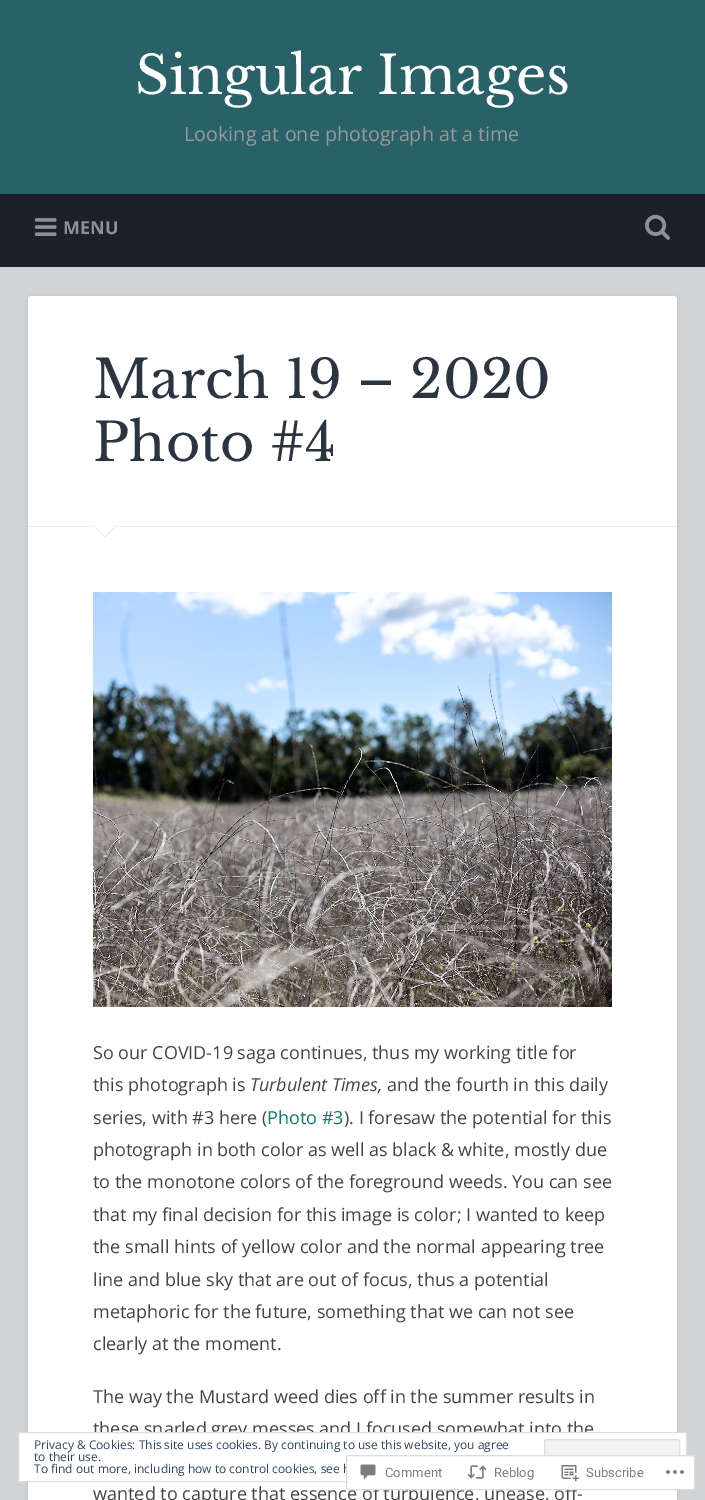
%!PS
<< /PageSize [705 1500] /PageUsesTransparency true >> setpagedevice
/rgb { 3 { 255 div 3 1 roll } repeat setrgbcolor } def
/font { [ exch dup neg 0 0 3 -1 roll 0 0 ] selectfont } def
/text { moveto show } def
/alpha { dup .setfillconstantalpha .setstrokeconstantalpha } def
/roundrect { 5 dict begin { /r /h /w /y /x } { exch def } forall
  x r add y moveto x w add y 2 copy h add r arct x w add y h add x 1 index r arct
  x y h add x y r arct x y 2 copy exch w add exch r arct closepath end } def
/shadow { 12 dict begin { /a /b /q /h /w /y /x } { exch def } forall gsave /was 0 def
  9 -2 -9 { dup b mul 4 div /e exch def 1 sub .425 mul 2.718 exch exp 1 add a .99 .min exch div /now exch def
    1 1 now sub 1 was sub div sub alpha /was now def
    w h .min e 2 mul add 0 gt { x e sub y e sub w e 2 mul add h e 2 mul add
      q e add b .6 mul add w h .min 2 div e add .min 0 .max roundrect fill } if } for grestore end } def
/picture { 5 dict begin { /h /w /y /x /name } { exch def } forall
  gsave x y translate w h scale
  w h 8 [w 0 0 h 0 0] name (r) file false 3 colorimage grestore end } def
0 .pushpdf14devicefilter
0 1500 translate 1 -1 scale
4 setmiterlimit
208 212 215 rgb
0 0 705 1500 rectfill
40 98 104 rgb
0 0 705 194 rectfill
28 32 43 rgb
0 194 705 73 rectfill
(img_01.rgb) 35 218 22 18 picture
(img_02.rgb) 645 214 25 26 picture
0 0 0 rgb
28 297 649 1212 3 2 0.1 shadow
255 255 255 rgb
28 296 649 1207 3 roundrect fill
238 238 238 rgb
28 526 649 1 rectfill
93 526 moveto 24 0 rlineto -12 12 rlineto closepath fill
255 255 255 rgb
94 525 moveto 22 0 rlineto -11 11 rlineto closepath fill
(img_03.rgb) 93 592 519 415 picture
/LibreBaskerville-Regular 52.75 font
(Singular Images) 135 94 text
/OpenSans-Regular 19.75 font
153 153 153 rgb
(Looking at one photograph at a time) 184 141 text
/OpenSans-Bold 18 font
142 144 149 rgb
(MENU) 63 234 text
/LibreBaskerville-Regular 52.75 font
43 53 66 rgb
(March 19 – 2020) 93 398 text
(Photo #4) 93 461 text
/OpenSans-Regular 18 font
68 68 68 rgb
(So our COVID-19 saga continues, thus my working title for) 93 1059 text
(this photograph is) 93 1091 text
/OpenSans-Italic 18 font
(Turbulent Times,) 250 1091 text
/OpenSans-Regular 18 font
(and the fourth in this daily) 387 1091 text
(series, with #3 here \() 93 1124 text
6 125 104 rgb
(Photo #3) 267 1124 text
68 68 68 rgb
(\). I foresaw the potential for this) 344 1124 text
(photograph in both color as well as black & white, mostly due) 93 1156 text
(to the monotone colors of the foreground weeds. You can see) 93 1188 text
(that my final decision for this image is color; I wanted to keep) 93 1221 text
(the small hints of yellow color and the normal appearing tree) 93 1253 text
(line and blue sky that are out of focus, thus a potential) 93 1286 text
(metaphoric for the future, something that we can not see) 93 1318 text
(clearly at the moment.) 93 1350 text
(The way the Mustard weed dies off in the summer results in) 93 1403 text
(these snarled grey messes and I focused somewhat into the) 93 1435 text
(wanted to capture that essence of turbulence, unease, off-) 93 1500 text
255 255 255 rgb
18.5 1432.5 moveto 668 0 rlineto 0 49 rlineto -668 0 rlineto closepath gsave fill grestore
222 222 222 rgb
stroke
/OpenSans-Regular 12 font
46 68 103 rgb
(Privacy & Cookies: This site uses cookies. By continuing to use this website, you agree) 34 1449 text
243 243 243 rgb
544.5 1439.5 135 31 2.5 roundrect gsave fill grestore
222 222 222 rgb
stroke
46 68 103 rgb
(to their use.) 34 1461 text
(To find out more, including how to control cookies, see h) 34 1473 text
375 1474 73 1 rectfill
0.98 alpha
255 255 255 rgb
346 1455 349 35 3 roundrect fill
220 220 222 rgb
346.5 1455.5 348 34 2.5 roundrect stroke
1 alpha
(img_04.rgb) 360 1464 16 16 picture
/Roboto-Regular 13 font
123 127 132 rgb
(Comment) 385 1477 text
(img_05.rgb) 467 1465 20 14 picture
(Reblog) 494 1477 text
(img_06.rgb) 561 1465 18 17 picture
(Subscribe) 586 1477 text
(img_07.rgb) 666 1470 18 4 picture
.poppdf14devicefilter showpage
